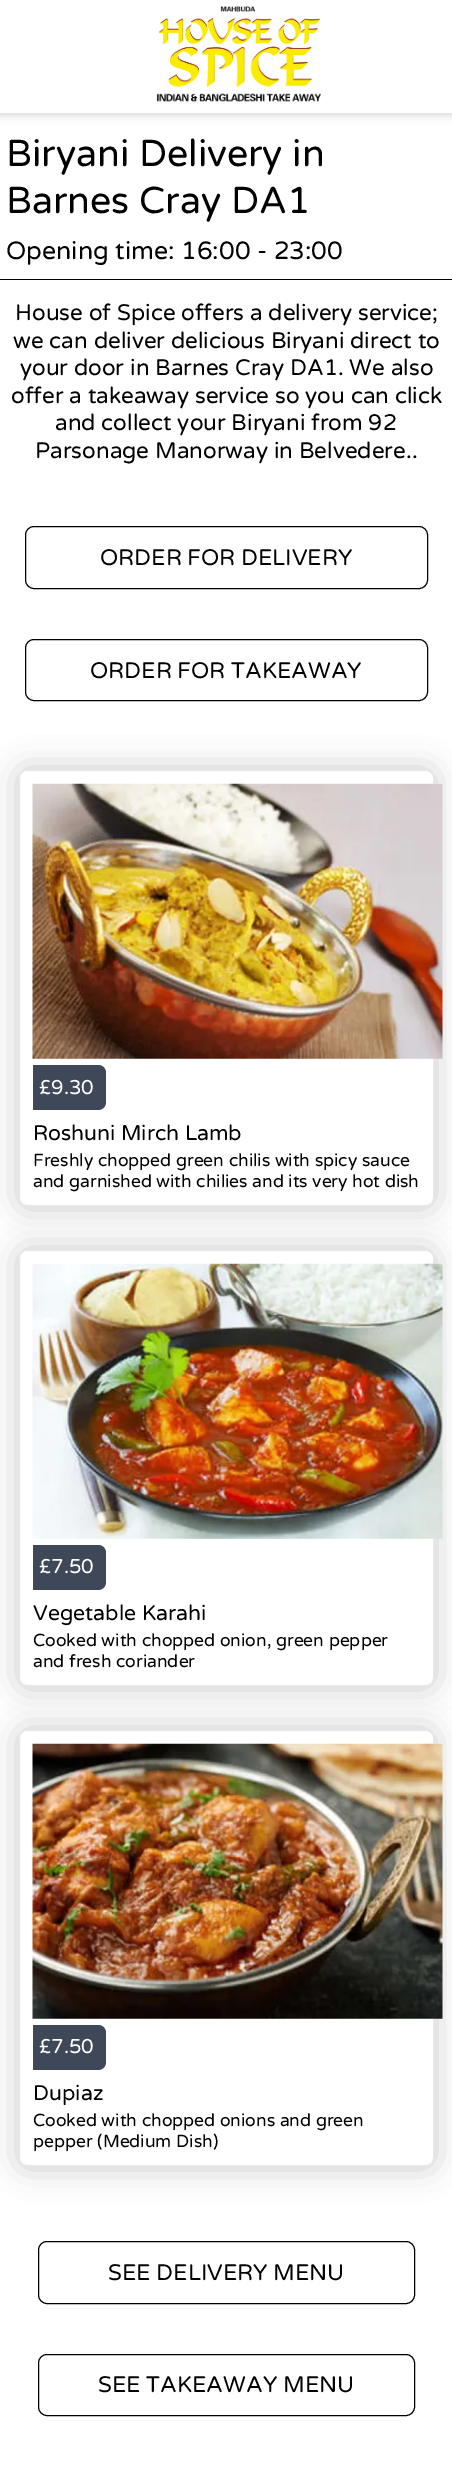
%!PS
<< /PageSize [452 2487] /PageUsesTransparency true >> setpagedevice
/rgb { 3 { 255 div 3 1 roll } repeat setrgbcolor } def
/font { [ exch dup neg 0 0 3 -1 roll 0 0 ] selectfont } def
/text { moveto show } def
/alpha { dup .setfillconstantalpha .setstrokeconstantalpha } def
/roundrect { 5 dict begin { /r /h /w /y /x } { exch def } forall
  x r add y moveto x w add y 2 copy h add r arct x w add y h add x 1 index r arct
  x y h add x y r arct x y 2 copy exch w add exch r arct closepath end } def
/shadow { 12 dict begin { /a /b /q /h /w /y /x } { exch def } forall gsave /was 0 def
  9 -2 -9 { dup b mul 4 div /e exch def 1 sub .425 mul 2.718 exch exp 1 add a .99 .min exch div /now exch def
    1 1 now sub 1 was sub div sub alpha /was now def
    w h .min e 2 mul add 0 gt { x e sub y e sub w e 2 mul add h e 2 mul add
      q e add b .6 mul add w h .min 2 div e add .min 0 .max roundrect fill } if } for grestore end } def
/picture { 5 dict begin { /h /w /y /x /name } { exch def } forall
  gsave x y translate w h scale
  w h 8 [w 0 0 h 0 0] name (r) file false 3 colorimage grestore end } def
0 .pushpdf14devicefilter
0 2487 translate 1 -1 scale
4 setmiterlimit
255 255 255 rgb
0 0 452 2487 rectfill
53 53 53 rgb
-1 -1 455 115 0 5 0.25 shadow
255 255 255 rgb
0 0 452 113 rectfill
(img_01.rgb) 156 6 166 96 picture
0 0 0 rgb
0 279 452 1 rectfill
25.5 526.5 402 62 8.5 roundrect stroke
25.5 639.5 402 61 8.5 roundrect stroke
53 53 53 rgb
18 769 417 439 9 15.5 0.25 shadow
255 255 255 rgb
19.5 770.5 414 435 7.5 roundrect gsave fill grestore
232 232 232 rgb
stroke
(img_02.rgb) 32 783 411 276 picture
63 72 88 rgb
33 1065 moveto 65 0 rlineto 4.5 0 8 3.5 8 8 rcurveto 0 29 rlineto 0 4.5 -3.5 8 -8 8 rcurveto -65 0 rlineto closepath fill
53 53 53 rgb
18 1249 417 439 9 15.5 0.25 shadow
255 255 255 rgb
19.5 1250.5 414 435 7.5 roundrect gsave fill grestore
232 232 232 rgb
stroke
(img_03.rgb) 32 1263 411 276 picture
63 72 88 rgb
33 1545 moveto 65 0 rlineto 4.5 0 8 3.5 8 8 rcurveto 0 29 rlineto 0 4.5 -3.5 8 -8 8 rcurveto -65 0 rlineto closepath fill
53 53 53 rgb
18 1729 417 439 9 15.5 0.25 shadow
255 255 255 rgb
19.5 1730.5 414 435 7.5 roundrect gsave fill grestore
232 232 232 rgb
stroke
(img_04.rgb) 32 1743 411 276 picture
63 72 88 rgb
33 2025 moveto 65 0 rlineto 4.5 0 8 3.5 8 8 rcurveto 0 29 rlineto 0 4.5 -3.5 8 -8 8 rcurveto -65 0 rlineto closepath fill
0 0 0 rgb
38.5 2241.5 376 62 8.5 roundrect stroke
38.5 2354.5 376 61 8.5 roundrect stroke
/VarelaRound-Regular 37.5 font
(Biryani Delivery in) 6 166 text
(Barnes Cray DA1) 6 213 text
/VarelaRound-Regular 25 font
(Opening time: 16:00 - 23:00) 6 259 text
/VarelaRound-Regular 22.5 font
(House of Spice offers a delivery service;) 15 320 text
(we can deliver delicious Biryani direct to) 13 348 text
(your door in Barnes Cray DA1. We also) 20 375 text
(offer a takeaway service so you can click) 11 403 text
(and collect your Biryani from 92) 55 430 text
(Parsonage Manorway in Belvedere..) 35 458 text
(ORDER FOR DELIVERY) 100 565 text
(ORDER FOR TAKEAWAY) 90 678 text
/VarelaRound-Regular 20 font
255 255 255 rgb
(£9.30) 39 1094 text
/VarelaRound-Regular 21.25 font
0 0 0 rgb
(Roshuni Mirch Lamb) 33 1140 text
/VarelaRound-Regular 17.5 font
(Freshly chopped green chilis with spicy sauce) 33 1166 text
(and garnished with chilies and its very hot dish) 33 1187 text
/VarelaRound-Regular 20 font
255 255 255 rgb
(£7.50) 39 1573 text
/VarelaRound-Regular 21.25 font
0 0 0 rgb
(Vegetable Karahi) 33 1620 text
/VarelaRound-Regular 17.5 font
(Cooked with chopped onion, green pepper) 33 1646 text
(and fresh coriander) 33 1667 text
/VarelaRound-Regular 20 font
255 255 255 rgb
(£7.50) 39 2053 text
/VarelaRound-Regular 21.25 font
0 0 0 rgb
(Dupiaz) 33 2100 text
/VarelaRound-Regular 17.5 font
(Cooked with chopped onions and green) 33 2126 text
(pepper \(Medium Dish\)) 33 2147 text
/VarelaRound-Regular 22.5 font
(SEE DELIVERY MENU) 108 2280 text
(SEE TAKEAWAY MENU) 98 2392 text
.poppdf14devicefilter showpage
